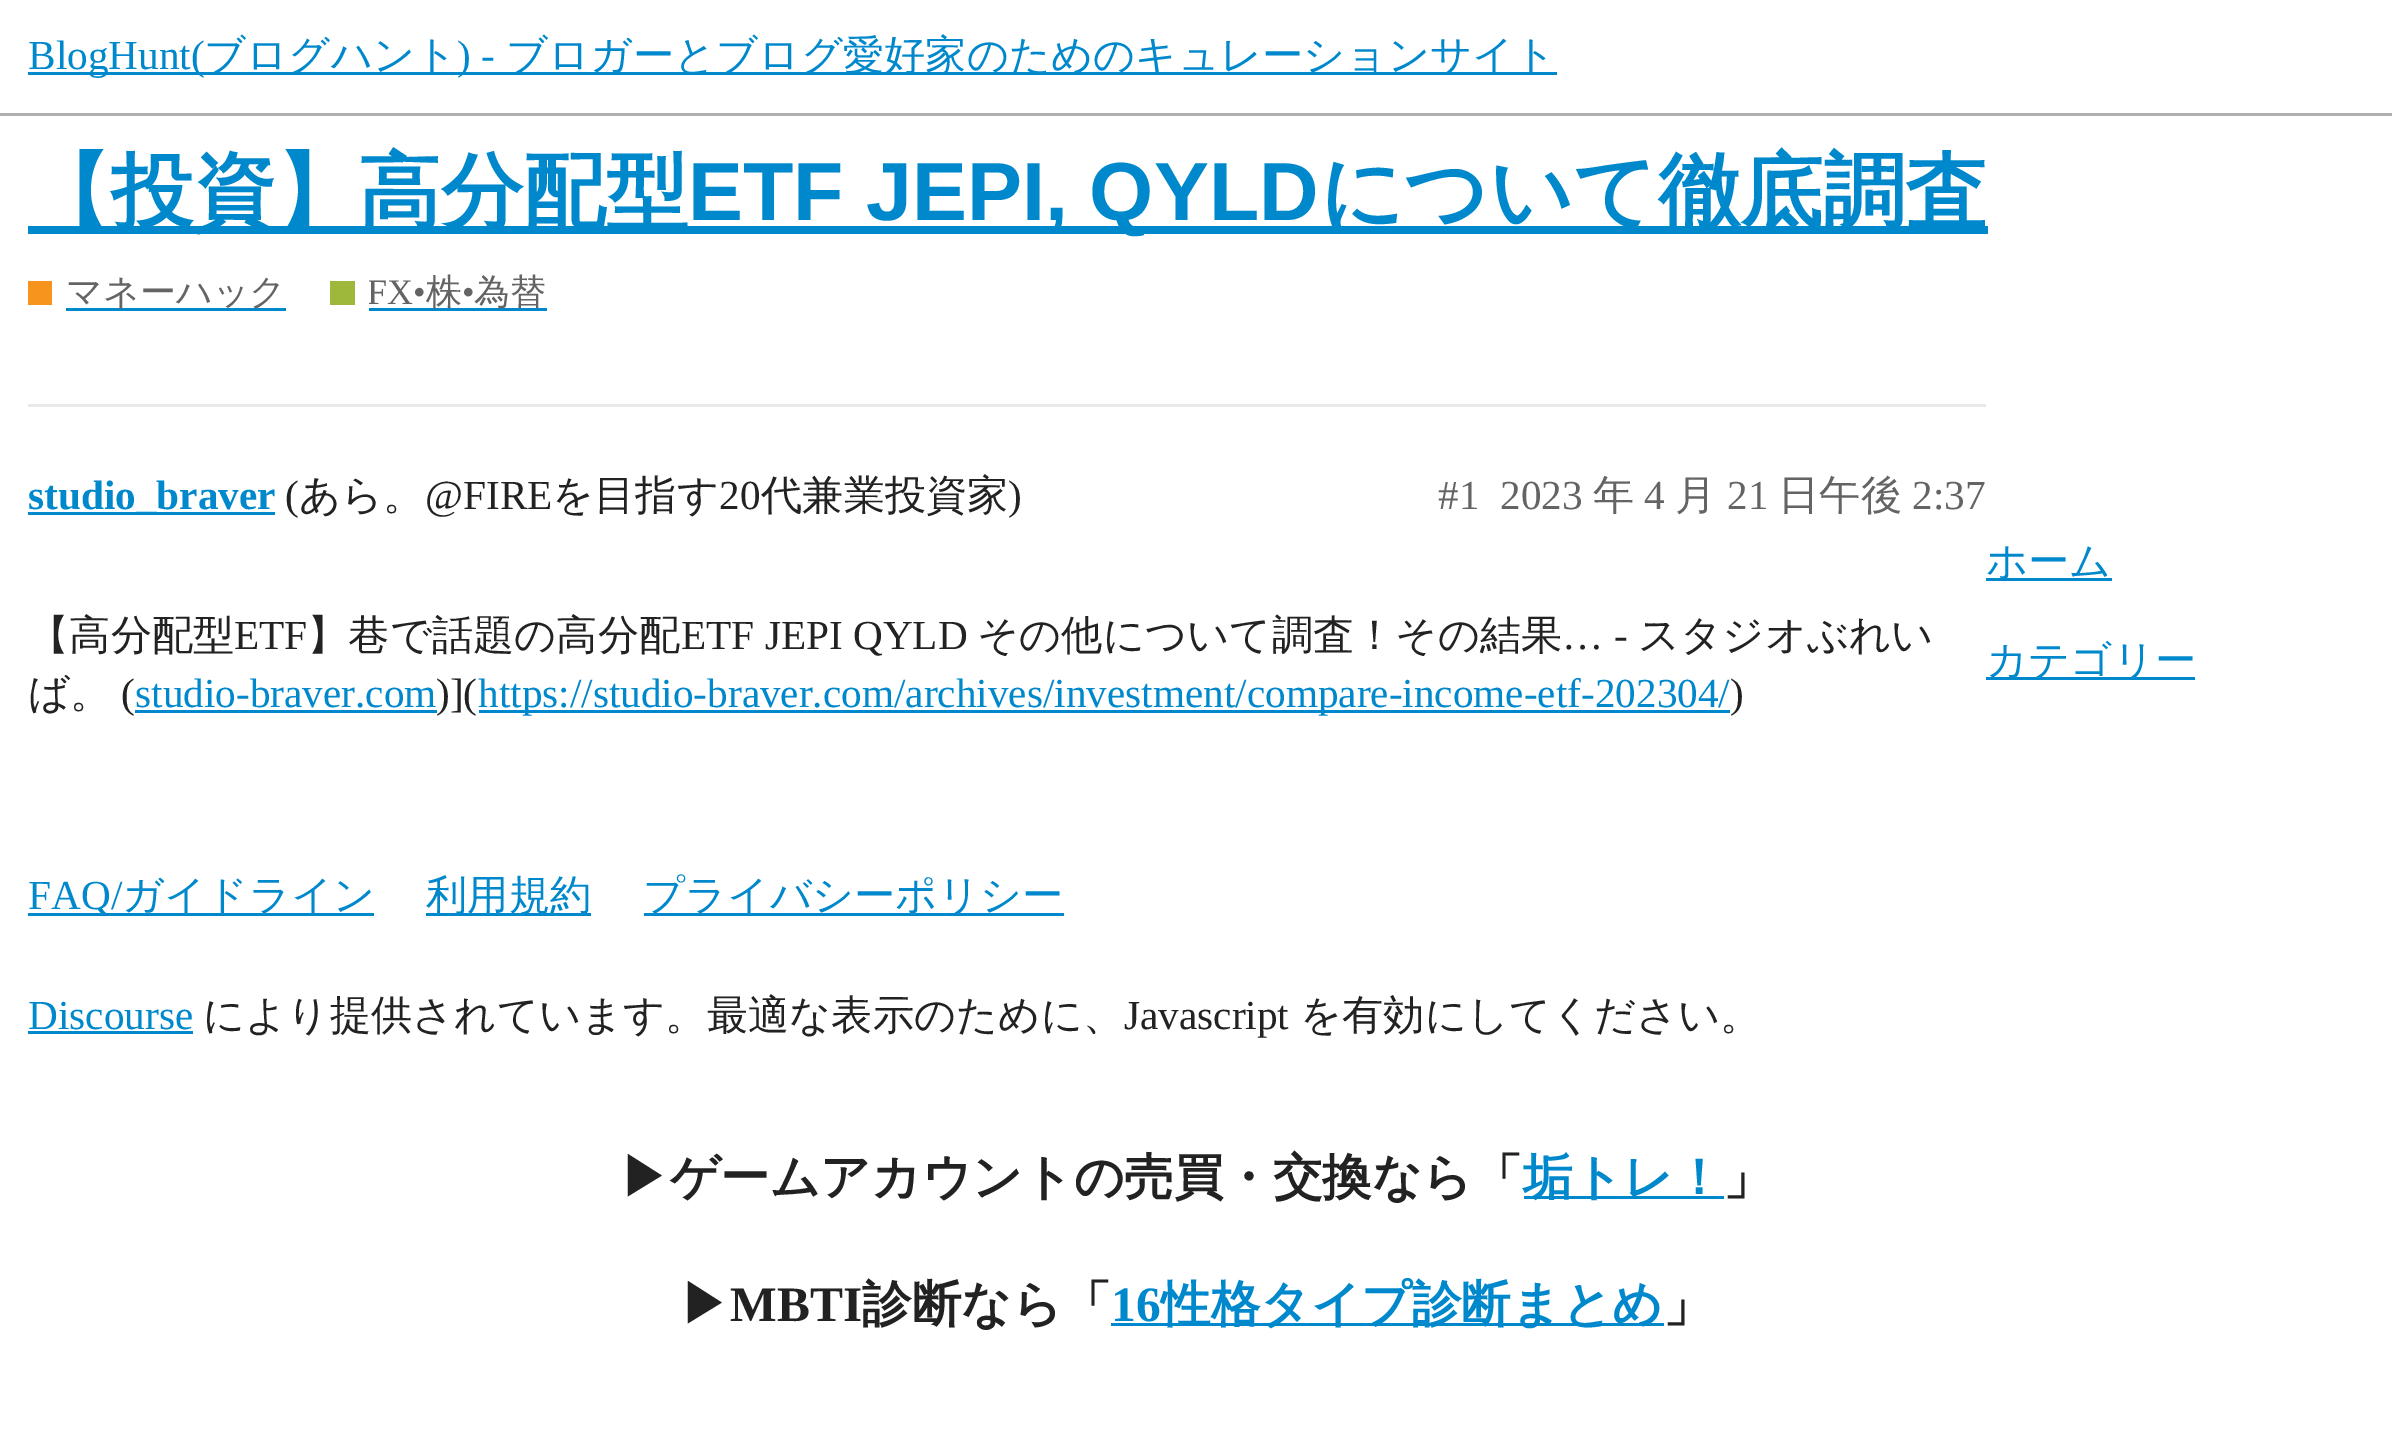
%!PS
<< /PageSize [2392 1449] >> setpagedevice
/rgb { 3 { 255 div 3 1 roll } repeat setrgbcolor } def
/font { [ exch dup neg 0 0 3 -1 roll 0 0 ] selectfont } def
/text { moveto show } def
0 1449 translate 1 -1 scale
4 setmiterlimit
255 255 255 rgb
0 0 2392 1449 rectfill
175 175 175 rgb
0 113 2392 3 rectfill
0 136 204 rgb
28 72 1529 3 rectfill
28 226 1960 8 rectfill
247 148 29 rgb
28 281 24 24 rectfill
0 136 204 rgb
66 308 220 3 rectfill
158 184 59 rgb
330 281 25 24 rectfill
0 136 204 rgb
369 308 178 3 rectfill
233 233 233 rgb
28 404 1958 3 rectfill
0 136 204 rgb
28 512 247 3 rectfill
135 710 302 3 rectfill
479 710 1251 3 rectfill
1986 578 126 3 rectfill
1986 677 209 3 rectfill
28 913 346 3 rectfill
426 913 165 3 rectfill
644 913 420 3 rectfill
28 1031 165 3 rectfill
1524 1196 200 3 rectfill
1111 1323 553 3 rectfill
/LiberationSerif-Regular 41.25 font
(BlogHunt\() 28 69 text
/WenQuanYiZenHei-Medium 41.25 font
(ブログハント) 204 69 text
/LiberationSerif-Regular 41.25 font
(\) -) 457 69 text
/WenQuanYiZenHei-Medium 41.25 font
(ブロガーとブログ愛好家のためのキュレーションサイト) 506 69 text
/WenQuanYiZenHei-Bold 82.5 font
(【投資】高分配型) 28 220 text
/LiberationSans-Bold 82.5 font
688 220 moveto -1 0 32 (ETF JEPI, QYLD) widthshow
/WenQuanYiZenHei-Bold 82.5 font
(について徹底調査) 1320 220 text
/WenQuanYiZenHei-Medium 36 font
100 100 100 rgb
(マネーハック) 66 304 text
gsave
369 270 178 49 rectclip
/LiberationSerif-Regular 36 font
(FX•) 367 304 text
grestore
(株) 426 304 text
/LiberationSerif-Regular 36 font
(•) 462 304 text
/WenQuanYiZenHei-Medium 36 font
(為替) 474 304 text
/LiberationSerif-Bold 41.25 font
0 136 204 rgb
(studio_braver) 28 509 text
/LiberationSerif-Regular 41.25 font
34 34 34 rgb
(\() 285 509 text
/WenQuanYiZenHei-Medium 41.25 font
(あら。) 299 509 text
/LiberationSerif-Regular 41.25 font
(@FIRE) 425 509 text
/WenQuanYiZenHei-Medium 41.25 font
(を目指す) 552 509 text
/LiberationSerif-Regular 41.25 font
(20) 719 509 text
/WenQuanYiZenHei-Medium 41.25 font
(代兼業投資家) 761 509 text
/LiberationSerif-Regular 41.25 font
(\)) 1008 509 text
100 100 100 rgb
(#1) 1438 509 text
(2023) 1500 509 text
/WenQuanYiZenHei-Medium 41.25 font
(年) 1593 509 text
/LiberationSerif-Regular 41.25 font
(4) 1644 509 text
/WenQuanYiZenHei-Medium 41.25 font
(月) 1675 509 text
/LiberationSerif-Regular 41.25 font
(21) 1727 509 text
/WenQuanYiZenHei-Medium 41.25 font
(日午後) 1778 509 text
/LiberationSerif-Regular 41.25 font
(2:37) 1912 509 text
/WenQuanYiZenHei-Medium 41.25 font
34 34 34 rgb
(【高分配型) 28 649 text
/LiberationSerif-Regular 41.25 font
(ETF) 234 649 text
/WenQuanYiZenHei-Medium 41.25 font
(】巷で話題の高分配) 307 649 text
/LiberationSerif-Regular 41.25 font
(ETF JEPI QYLD) 681 649 text
/WenQuanYiZenHei-Medium 41.25 font
(その他について調査！その結果) 977 649 text
/LiberationSerif-Regular 41.25 font
(… -) 1562 649 text
/WenQuanYiZenHei-Medium 41.25 font
(スタジオぶれい) 1638 649 text
(ば。) 28 707 text
/LiberationSerif-Regular 41.25 font
(\() 121 707 text
0 136 204 rgb
(studio-braver.com) 135 707 text
34 34 34 rgb
(\)]\() 436 707 text
0 136 204 rgb
(https://studio-braver.com/archives/investment/compare-income-etf-202304/) 478 707 text
34 34 34 rgb
(\)) 1730 707 text
/WenQuanYiZenHei-Medium 41.25 font
0 136 204 rgb
(ホーム) 1986 575 text
(カテゴリー) 1986 674 text
/LiberationSerif-Regular 41.25 font
(FAQ/) 28 909 text
/WenQuanYiZenHei-Medium 41.25 font
(ガイドライン) 122 909 text
(利用規約) 426 909 text
(プライバシーポリシー) 643 909 text
/LiberationSerif-Regular 41.25 font
(Discourse) 28 1029 text
/WenQuanYiZenHei-Medium 41.25 font
34 34 34 rgb
(により提供されています。最適な表示のために、) 203 1029 text
/LiberationSerif-Regular 41.25 font
(Javascript) 1124 1029 text
/WenQuanYiZenHei-Medium 41.25 font
(を有効にしてください。) 1300 1029 text
/WenQuanYiZenHei-Bold 49.5 font
(▶ゲームアカウントの売買・交換なら「) 620 1194 text
0 136 204 rgb
(垢トレ！) 1523 1194 text
34 34 34 rgb
(」) 1723 1194 text
(▶) 680 1321 text
/LiberationSerif-Bold 49.5 font
(MBTI) 730 1321 text
/WenQuanYiZenHei-Bold 49.5 font
(診断なら「) 862 1321 text
/LiberationSerif-Bold 49.5 font
0 136 204 rgb
(16) 1111 1321 text
/WenQuanYiZenHei-Bold 49.5 font
(性格タイプ診断まとめ) 1161 1321 text
34 34 34 rgb
(」) 1663 1321 text
showpage
